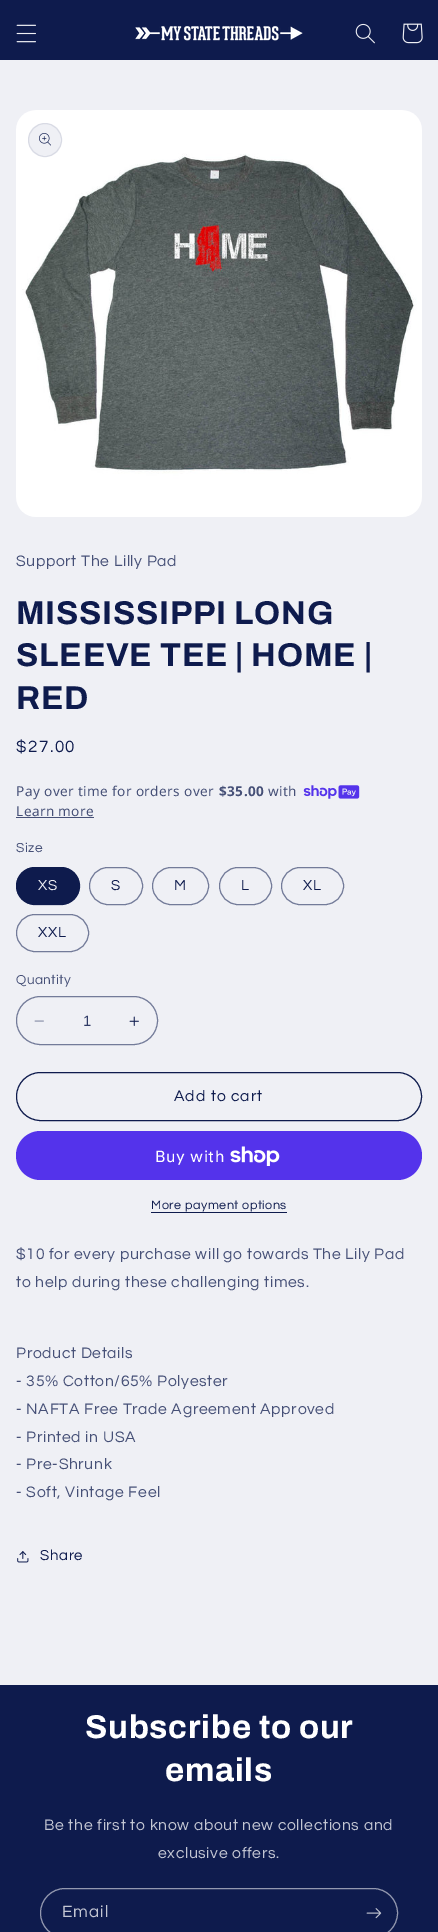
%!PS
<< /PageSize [438 1932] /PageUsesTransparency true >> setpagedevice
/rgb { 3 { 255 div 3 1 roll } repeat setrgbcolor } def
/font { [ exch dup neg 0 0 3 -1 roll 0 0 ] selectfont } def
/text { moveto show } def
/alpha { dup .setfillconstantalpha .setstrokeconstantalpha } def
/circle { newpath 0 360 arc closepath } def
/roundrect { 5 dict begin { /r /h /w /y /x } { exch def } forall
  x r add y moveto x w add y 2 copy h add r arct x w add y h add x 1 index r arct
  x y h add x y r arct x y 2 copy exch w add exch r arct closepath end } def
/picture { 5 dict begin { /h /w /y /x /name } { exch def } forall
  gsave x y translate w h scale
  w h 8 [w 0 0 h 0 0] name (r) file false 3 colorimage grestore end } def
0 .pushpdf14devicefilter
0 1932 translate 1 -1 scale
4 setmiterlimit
239 240 245 rgb
0 0 438 1932 rectfill
14 27 77 rgb
0 0 438 60 rectfill
(img_01.rgb) 16 24 20 19 picture
(img_02.rgb) 135 26 168 15 picture
(img_03.rgb) 355 23 20 21 picture
(img_04.rgb) 402 23 21 21 picture
(img_05.rgb) 16 110 406 407 picture
239 240 245 rgb
45 140 17 circle fill
0.1 alpha
14 27 77 rgb
45 140 16.5 circle stroke
1 alpha
(img_06.rgb) 39 133 12 13 picture
(img_07.rgb) 303 785 57 14 picture
70 80 119 rgb
16 817 78 1 rectfill
14 27 77 rgb
16 867 64 38 19 roundrect fill
0.55 alpha
16.5 867.5 63 37 18.5 roundrect stroke
1 alpha
115 123 153 rgb
89.5 867.5 53 37 18.5 roundrect stroke
152.5 867.5 56 37 18.5 roundrect stroke
219.5 867.5 52 37 18.5 roundrect stroke
281.5 867.5 62 37 18.5 roundrect stroke
16.5 914.5 72 37 18.5 roundrect stroke
(img_08.rgb) 34 1020 10 2 picture
(img_09.rgb) 129 1016 10 10 picture
16.5 996.5 141 48 24 roundrect stroke
14 27 77 rgb
16.5 1072.5 405 48 24 roundrect stroke
84 51 235 rgb
16 1131 406 49 24.5 roundrect fill
(img_10.rgb) 230 1146 50 20 picture
14 27 77 rgb
151 1212 136 1 rectfill
(img_11.rgb) 17 1551 12 12 picture
0 1685 438 247 rectfill
147 152 175 rgb
40.5 1888.5 357 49 24.5 roundrect stroke
(img_12.rgb) 366 1908 16 11 picture
/Questrial-Regular 15.75 font
70 80 119 rgb
16 566 moveto 0.63 0 (Support The Lilly Pad) ashow
/Archivo-Bold 33 font
14 27 77 rgb
16 624 moveto 0.7 0 (MISSISSIPPI LONG) ashow
16 666 moveto 0.7 0 (SLEEVE TEE | HOME |) ashow
16 709 moveto 0.7 0 (RED) ashow
/Questrial-Regular 17 font
16 752 moveto 1.5 0 ($27.00) ashow
/NotoSans-Regular 13.6 font
70 80 119 rgb
16 796 moveto 0.4 0 (Pay over time for orders over) ashow
/NotoSans-Bold 13.6 font
219 796 moveto 0.4 0 ($35.00) ashow
/NotoSans-Regular 13.6 font
268 796 moveto 0.4 0 (with) ashow
16 816 moveto 0.4 0 (Learn more) ashow
/Questrial-Regular 13.6 font
16 852 moveto 0.4 0 (Size) ashow
/Questrial-Regular 15 font
239 240 245 rgb
38 890 moveto 1 0 (XS) ashow
14 27 77 rgb
111 890 moveto 1 0 (S) ashow
174 890 moveto 1 0 (M) ashow
241 890 moveto 1 0 (L) ashow
303 890 moveto 1 0 (XL) ashow
38 937 moveto 1 0 (XXL) ashow
/Questrial-Regular 13.6 font
70 80 119 rgb
16 984 moveto 0.4 0 (Quantity) ashow
/LiberationSans-Regular 15 font
48 59 102 rgb
(1) 83 1026 text
/Questrial-Regular 15.75 font
14 27 77 rgb
174 1101 moveto 1 0 (Add to cart) ashow
/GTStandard-Regular 16 font
255 255 255 rgb
155 1162 moveto 0.63 0 (Buy with) ashow
/Questrial-Regular 12.6 font
14 27 77 rgb
151 1209 moveto 0.5 0 (More payment options) ashow
/Questrial-Regular 15.75 font
70 80 119 rgb
16 1259 moveto 0.63 0 ($10 for every purchase will go towards The Lily Pad) ashow
16 1287 moveto 0.63 0 (to help during these challenging times.) ashow
16 1358 moveto 0.63 0 (Product Details) ashow
16 1386 moveto 0.63 0 (- 35% Cotton/65% Polyester) ashow
16 1414 moveto 0.63 0 (- NAFTA Free Trade Agreement Approved) ashow
16 1442 moveto 0.63 0 (- Printed in USA) ashow
16 1469 moveto 0.63 0 (- Pre-Shrunk) ashow
16 1497 moveto 0.63 0 (- Soft, Vintage Feel) ashow
/Questrial-Regular 15 font
14 27 77 rgb
40 1560 moveto 0.63 0 (Share) ashow
/Archivo-Bold 33 font
255 255 255 rgb
85 1738 moveto 0.7 0 (Subscribe to our) ashow
165 1781 moveto 0.7 0 (emails) ashow
/Questrial-Regular 15.75 font
195 198 211 rgb
44 1830 moveto 0.63 0 (Be the first to know about new collections and) ashow
158 1858 moveto 0.63 0 (exclusive offers.) ashow
/Questrial-Regular 17 font
62 1917 moveto 1 0 (Email) ashow
.poppdf14devicefilter showpage
